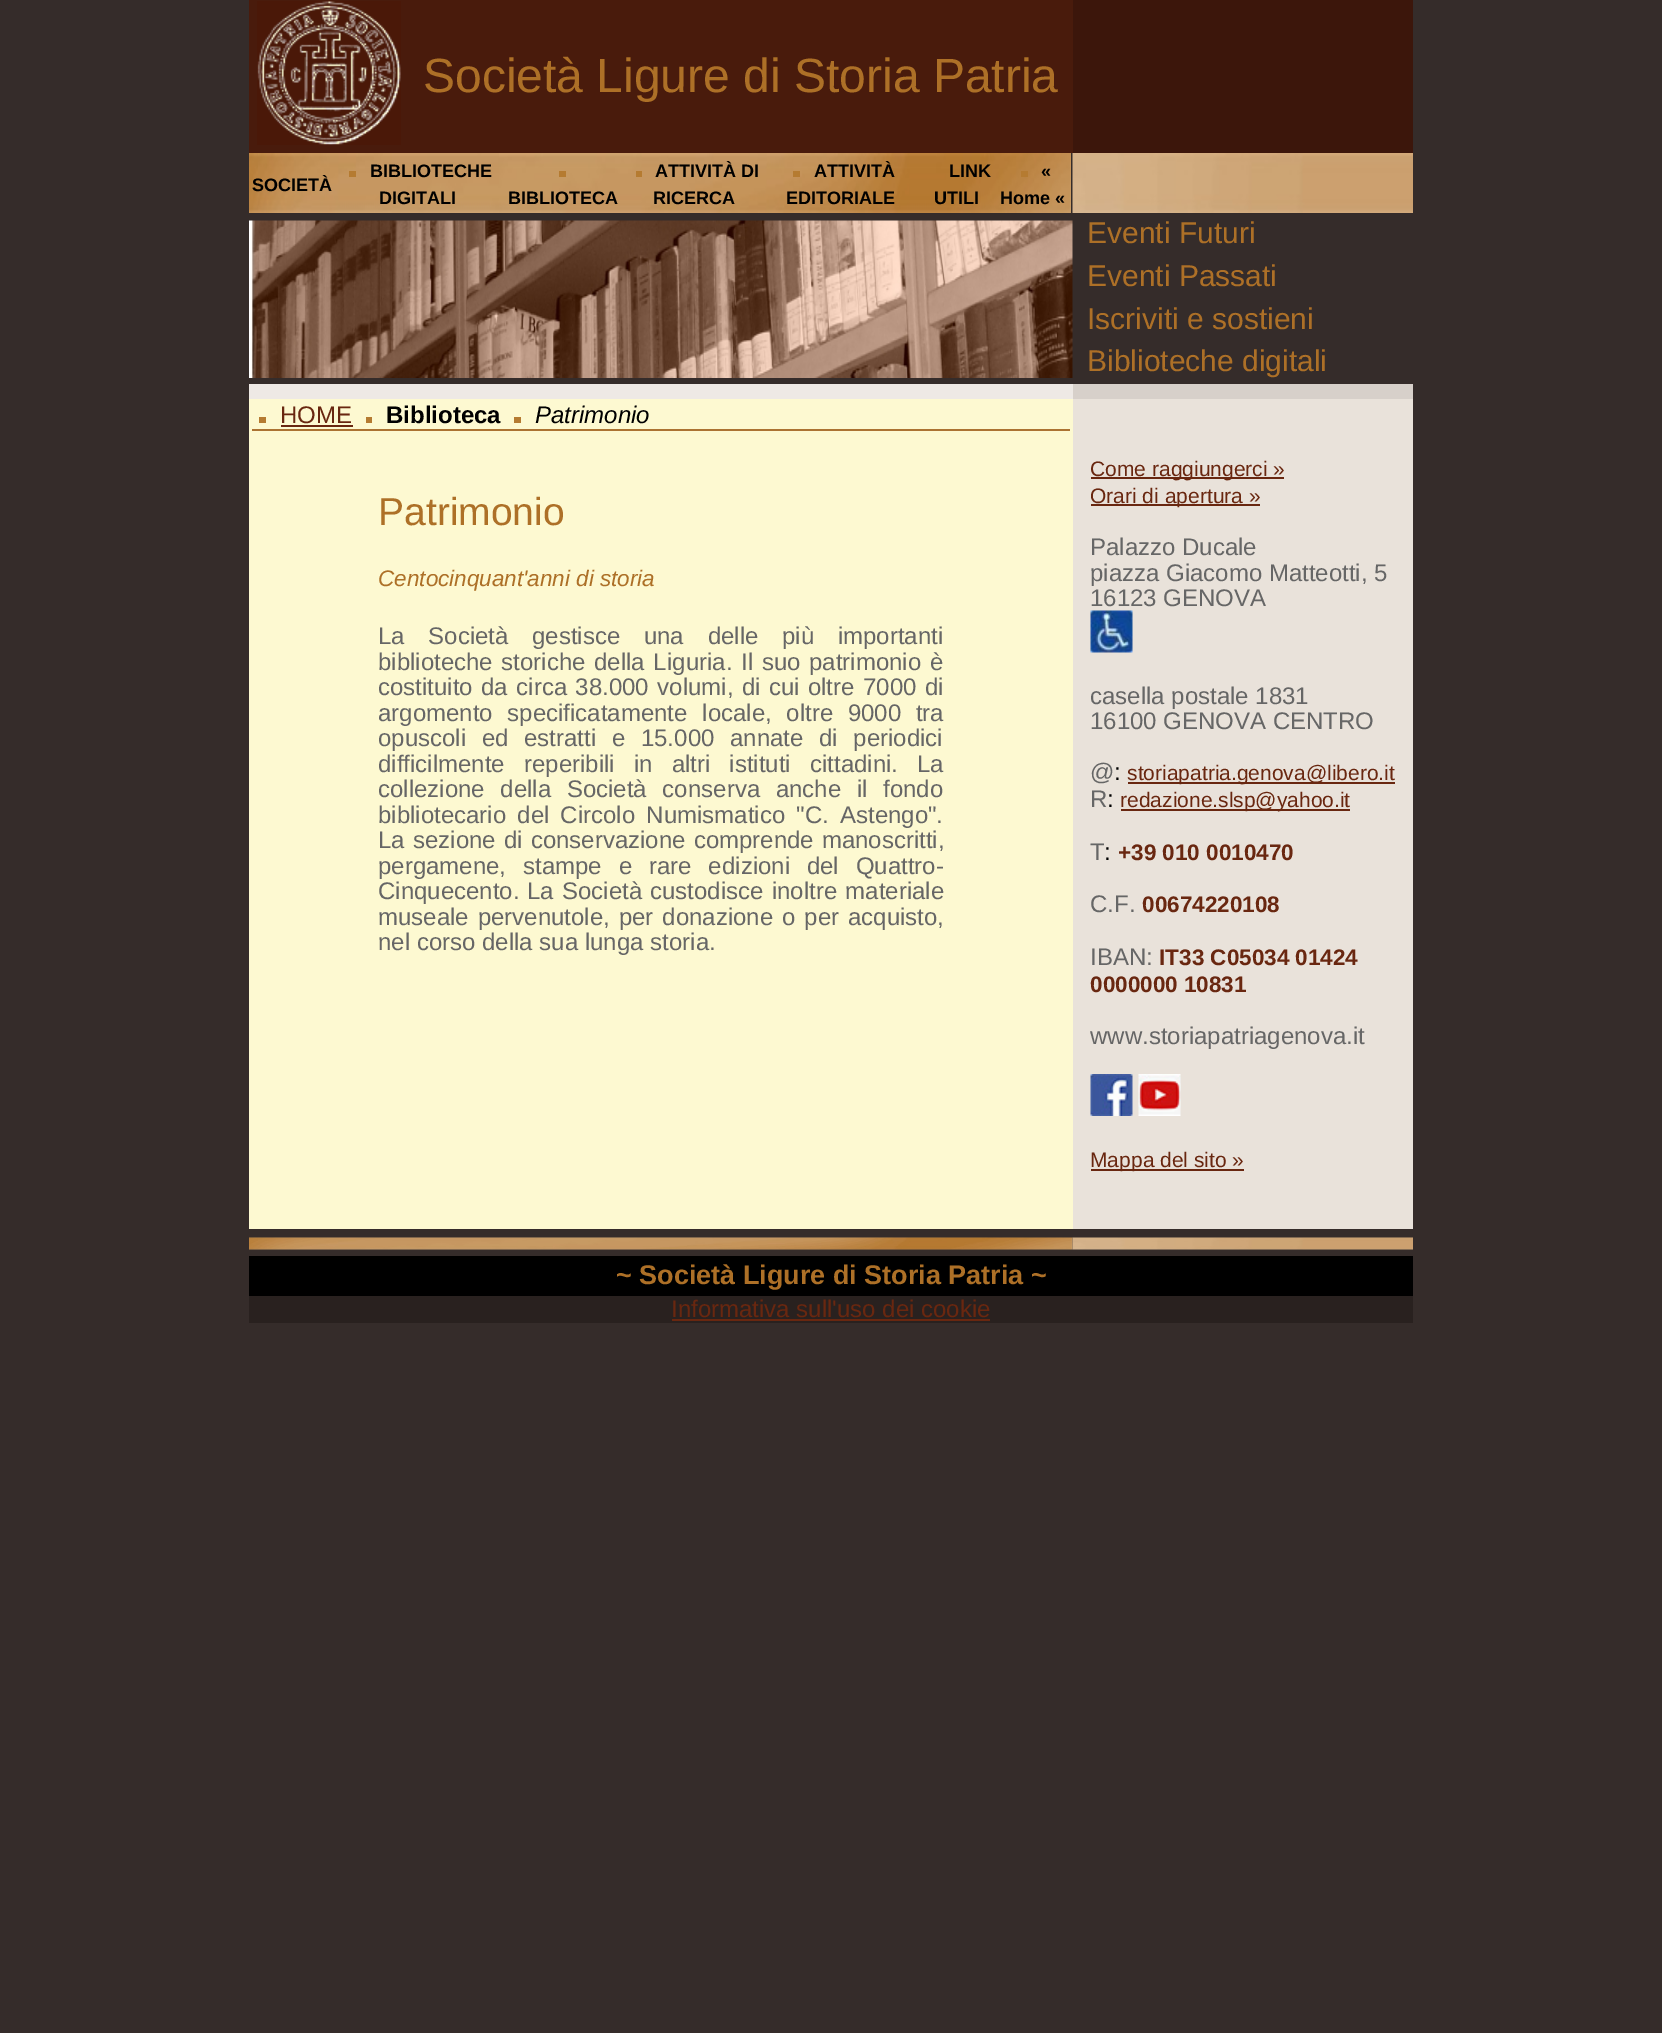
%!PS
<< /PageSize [1662 2033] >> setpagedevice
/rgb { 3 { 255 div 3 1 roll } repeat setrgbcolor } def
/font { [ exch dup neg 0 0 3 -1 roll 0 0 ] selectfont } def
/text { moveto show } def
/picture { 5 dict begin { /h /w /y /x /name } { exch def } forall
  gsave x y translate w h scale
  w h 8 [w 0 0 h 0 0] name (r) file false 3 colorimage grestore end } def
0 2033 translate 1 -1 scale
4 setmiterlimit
53 44 42 rgb
0 0 1662 2033 rectfill
73 27 12 rgb
249 0 824 153 rectfill
(img_01.rgb) 257 1 144 144 picture
60 22 11 rgb
1073 0 340 153 rectfill
(img_02.rgb) 249 153 822 60 picture
181 123 49 rgb
349 171 7 6 rectfill
636 171 6 6 rectfill
793 171 7 6 rectfill
1021 171 7 6 rectfill
559 171 7 6 rectfill
(img_03.rgb) 1072 153 341 60 picture
(img_04.rgb) 249 220 824 158 picture
238 233 229 rgb
249 384 824 15 rectfill
215 208 202 rgb
1073 384 340 15 rectfill
253 249 209 rgb
249 399 824 830 rectfill
171 115 50 rgb
252 429 818 2 rectfill
181 123 49 rgb
259 417 7 6 rectfill
105 39 16 rgb
281 425 72 2 rectfill
181 123 49 rgb
366 417 6 6 rectfill
514 417 7 6 rectfill
233 226 218 rgb
1073 399 340 830 rectfill
105 39 16 rgb
1091 477 193 2 rectfill
1091 504 169 2 rectfill
(img_05.rgb) 1090 610 43 43 picture
1128 782 267 2 rectfill
1121 809 229 2 rectfill
(img_06.rgb) 1090 1074 43 42 picture
(img_07.rgb) 1138 1074 43 42 picture
1091 1169 153 2 rectfill
(img_08.rgb) 249 1237 824 13 picture
(img_09.rgb) 1072 1237 341 13 picture
0 0 0 rgb
249 1256 1164 40 rectfill
41 33 31 rgb
249 1296 1164 27 rectfill
105 39 16 rgb
672 1319 318 2 rectfill
/LiberationSans-Regular 48 font
173 112 39 rgb
(Società Ligure di Storia Patria) 423 92 text
/LiberationSans-Bold 18 font
0 0 0 rgb
(SOCIETÀ) 252 191 text
(BIBLIOTECHE) 370 177 text
(DIGITALI) 379 204 text
(ATTIVITÀ DI) 655 177 text
(RICERCA) 653 204 text
(ATTIVITÀ) 814 177 text
(EDITORIALE) 786 204 text
(LINK) 949 177 text
(UTILI) 934 204 text
(«) 1041 177 text
(Home «) 1000 204 text
(BIBLIOTECA) 508 204 text
/LiberationSans-Regular 30 font
173 112 39 rgb
(Eventi Futuri) 1087 243 text
(Eventi Passati) 1087 286 text
(Iscriviti e sostieni) 1087 329 text
(Biblioteche digitali) 1087 371 text
/LiberationSans-Regular 24 font
105 39 16 rgb
(HOME) 280 423 text
/LiberationSans-Bold 24 font
0 0 0 rgb
(Biblioteca) 386 423 text
/LiberationSans-Italic 24 font
(Patrimonio) 535 423 text
/LiberationSans-Regular 39 font
173 112 39 rgb
(Patrimonio) 378 525 text
/LiberationSans-Italic 22.5 font
(Centocinquant'anni di storia) 378 586 text
/LiberationSans-Regular 24 font
102 102 102 rgb
378 644 moveto 17 0 32 (La Società gestisce una delle più importanti) widthshow
378 670 moveto 2 0 32 (biblioteche storiche della Liguria. Il suo patrimonio è) widthshow
378 695 moveto 1.75 0 32 (costituito da circa 38.000 volumi, di cui oltre 7000 di) widthshow
378 721 moveto 8 0 32 (argomento specificatamente locale, oltre 9000 tra) widthshow
378 746 moveto 9 0 32 (opuscoli ed estratti e 15.000 annate di periodici) widthshow
378 772 moveto 12.5 0 32 (difficilmente reperibili in altri istituti cittadini.) widthshow
(La) 917 772 text
378 797 moveto 9 0 32 (collezione della Società conserva anche il fondo) widthshow
378 823 moveto 4.5 0 32 (bibliotecario del Circolo Numismatico "C. Astengo".) widthshow
378 848 moveto 1.5 0 32 (La sezione di conservazione comprende manoscritti,) widthshow
378 874 moveto 10.25 0 32 (pergamene, stampe e rare edizioni del Quattro-) widthshow
(Cinquecento.) 378 899 text
527 899 moveto 1.5 0 32 (La Società custodisce inoltre materiale) widthshow
378 925 moveto 2.25 0 32 (museale pervenutole, per donazione o per acquisto,) widthshow
(nel corso della sua lunga storia.) 378 950 text
/LiberationSans-Regular 21 font
105 39 16 rgb
(Come raggiungerci ») 1090 476 text
(Orari di apertura ») 1090 503 text
/LiberationSans-Regular 24 font
102 102 102 rgb
(Palazzo Ducale) 1090 555 text
(piazza Giacomo Matteotti, 5) 1090 581 text
(16123 GENOVA) 1090 606 text
(casella postale 1831) 1090 704 text
(16100 GENOVA CENTRO) 1090 729 text
(@) 1090 780 text
0 0 0 rgb
(:) 1114 780 text
/LiberationSans-Regular 21 font
105 39 16 rgb
(storiapatria.genova@libero.it) 1127 780 text
/LiberationSans-Regular 24 font
102 102 102 rgb
(R) 1090 807 text
0 0 0 rgb
(:) 1107 807 text
/LiberationSans-Regular 21 font
105 39 16 rgb
(redazione.slsp@yahoo.it) 1120 807 text
/LiberationSans-Regular 24 font
102 102 102 rgb
(T) 1090 860 text
0 0 0 rgb
(:) 1104 860 text
/LiberationSans-Bold 22.5 font
105 39 16 rgb
(+39 010 0010470) 1118 860 text
/LiberationSans-Regular 24 font
102 102 102 rgb
(C.F.) 1090 912 text
/LiberationSans-Bold 22.5 font
105 39 16 rgb
(00674220108) 1142 912 text
/LiberationSans-Regular 24 font
102 102 102 rgb
(IBAN:) 1090 965 text
/LiberationSans-Bold 22.5 font
105 39 16 rgb
(IT33 C05034 01424) 1159 965 text
(0000000 10831) 1090 992 text
/LiberationSans-Regular 24 font
102 102 102 rgb
(www.storiapatriagenova.it) 1090 1044 text
/LiberationSans-Regular 21 font
105 39 16 rgb
(Mappa del sito ») 1090 1167 text
/LiberationSans-Bold 27 font
173 112 39 rgb
(~ Società Ligure di Storia Patria ~) 616 1284 text
/LiberationSans-Regular 24 font
105 39 16 rgb
(Informativa sull'uso dei cookie) 671 1317 text
showpage
